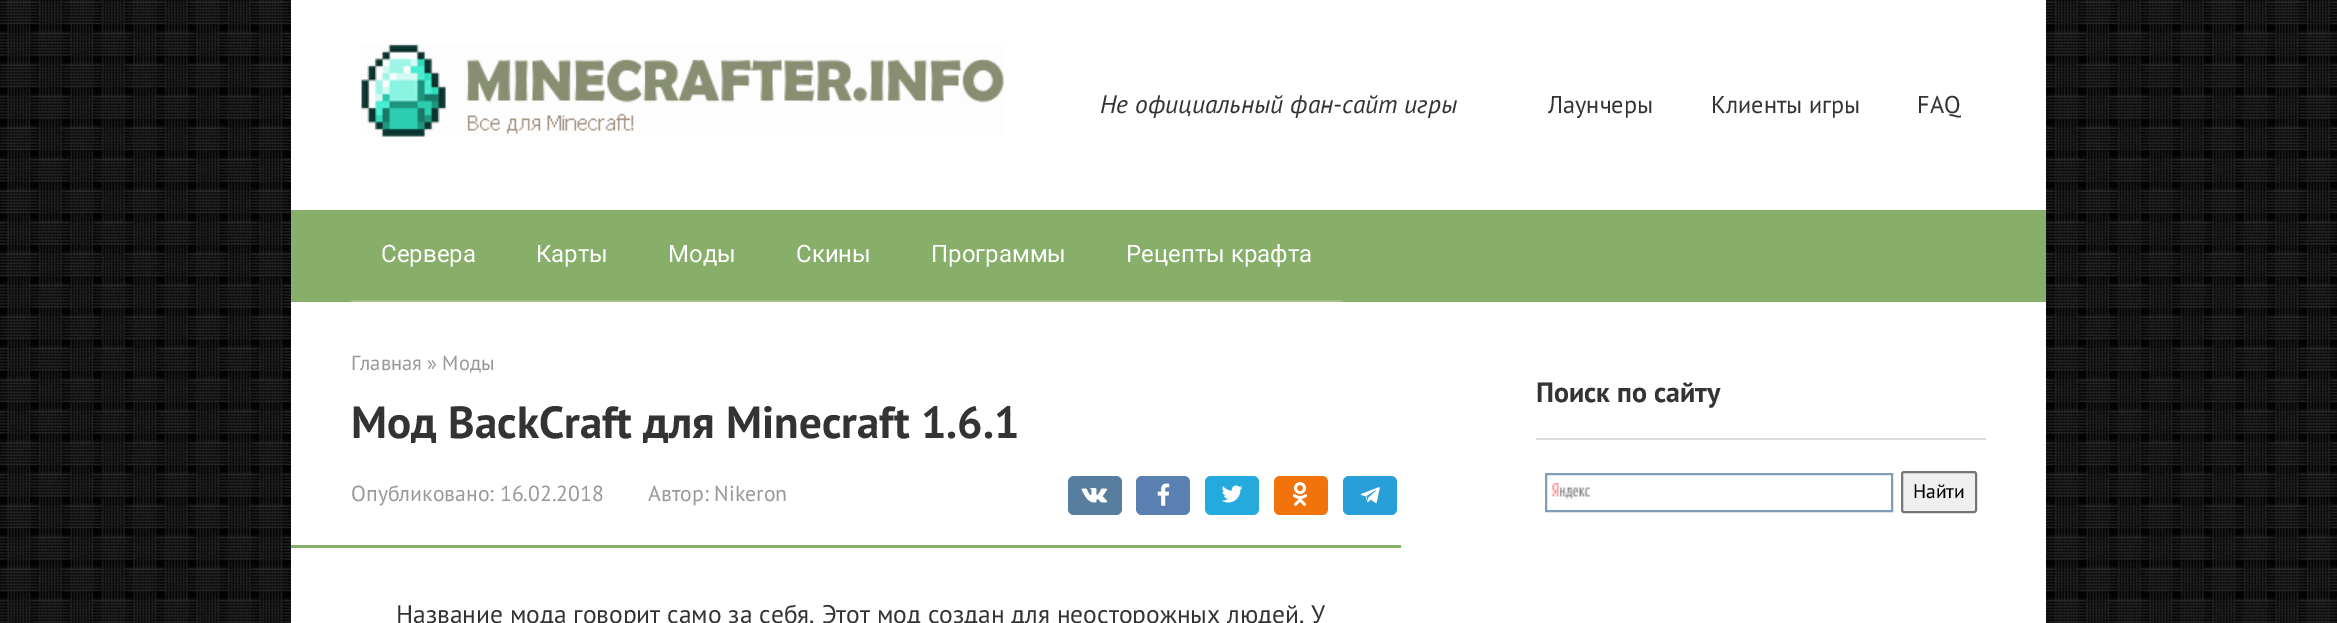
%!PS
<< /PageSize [2337 623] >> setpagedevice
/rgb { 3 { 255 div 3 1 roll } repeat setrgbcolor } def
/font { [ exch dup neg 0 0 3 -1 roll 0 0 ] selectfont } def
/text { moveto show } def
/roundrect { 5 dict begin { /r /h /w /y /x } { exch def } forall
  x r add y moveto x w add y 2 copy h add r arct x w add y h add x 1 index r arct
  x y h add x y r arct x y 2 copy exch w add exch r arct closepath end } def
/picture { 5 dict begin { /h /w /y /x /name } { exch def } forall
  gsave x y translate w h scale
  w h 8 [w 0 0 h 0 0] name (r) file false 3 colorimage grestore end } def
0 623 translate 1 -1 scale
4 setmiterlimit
255 255 255 rgb
0 0 2337 623 rectfill
(img_01.rgb) 0 0 2337 623 picture
291 0 1755 210 rectfill
(img_02.rgb) 361 44 643 93 picture
135 175 105 rgb
291 210 1755 92 rectfill
159 191 135 rgb
351 300 992 2 rectfill
255 255 255 rgb
291 302 1755 321 rectfill
88 126 159 rgb
1068 476 54 39 6 roundrect fill
(img_03.rgb) 1081 487 26 16 picture
90 128 177 rgb
1136 476 54 39 6 roundrect fill
(img_04.rgb) 1157 483 13 23 picture
36 170 221 rgb
1205 476 54 39 6 roundrect fill
(img_05.rgb) 1221 485 22 18 picture
242 114 12 rgb
1274 476 54 39 6 roundrect fill
(img_06.rgb) 1292 482 16 24 picture
40 159 217 rgb
1343 476 54 39 6 roundrect fill
(img_07.rgb) 1360 487 20 16 picture
135 175 105 rgb
291 545 1110 3 rectfill
218 218 218 rgb
1536 438 450 2 rectfill
(img_08.rgb) 1551 483 39 17 picture
127 157 185 rgb
2 setlinewidth
1546 474 346 37 rectstroke
239 239 239 rgb
1902 472 74 40 2 roundrect gsave fill grestore
118 118 118 rgb
stroke
/PTSans-Italic 25.5 font
51 51 51 rgb
(Не официальный фан-сайт игры) 1100 113 text
/PTSans-Regular 24.25 font
(Лаунчеры) 1548 113 text
(Клиенты игры) 1711 113 text
(FAQ) 1917 113 text
/Roboto-Regular 24 font
255 255 255 rgb
(Сервера) 381 262 text
(Карты) 536 262 text
(Моды) 668 262 text
(Скины) 796 262 text
(Программы) 931 262 text
(Рецепты крафта) 1126 262 text
/PTSans-Regular 20.5 font
153 153 153 rgb
(Главная » Моды) 351 370 text
/PTSans-Bold 45 font
51 51 51 rgb
(Мод BackCraft для Minecraft 1.6.1) 351 438 text
/PTSans-Regular 21.75 font
153 153 153 rgb
(Опубликовано: 16.02.2018) 351 501 text
(Автор: Nikeron) 648 501 text
/PTSans-Regular 25.5 font
51 51 51 rgb
(Название мода говорит само за себя. Этот мод создан для неосторожных людей. У) 396 623 text
/PTSans-Bold 28 font
(Поиск по сайту) 1536 402 text
/PTSans-Regular 19.5 font
0 0 0 rgb
(Найти) 1913 498 text
showpage
